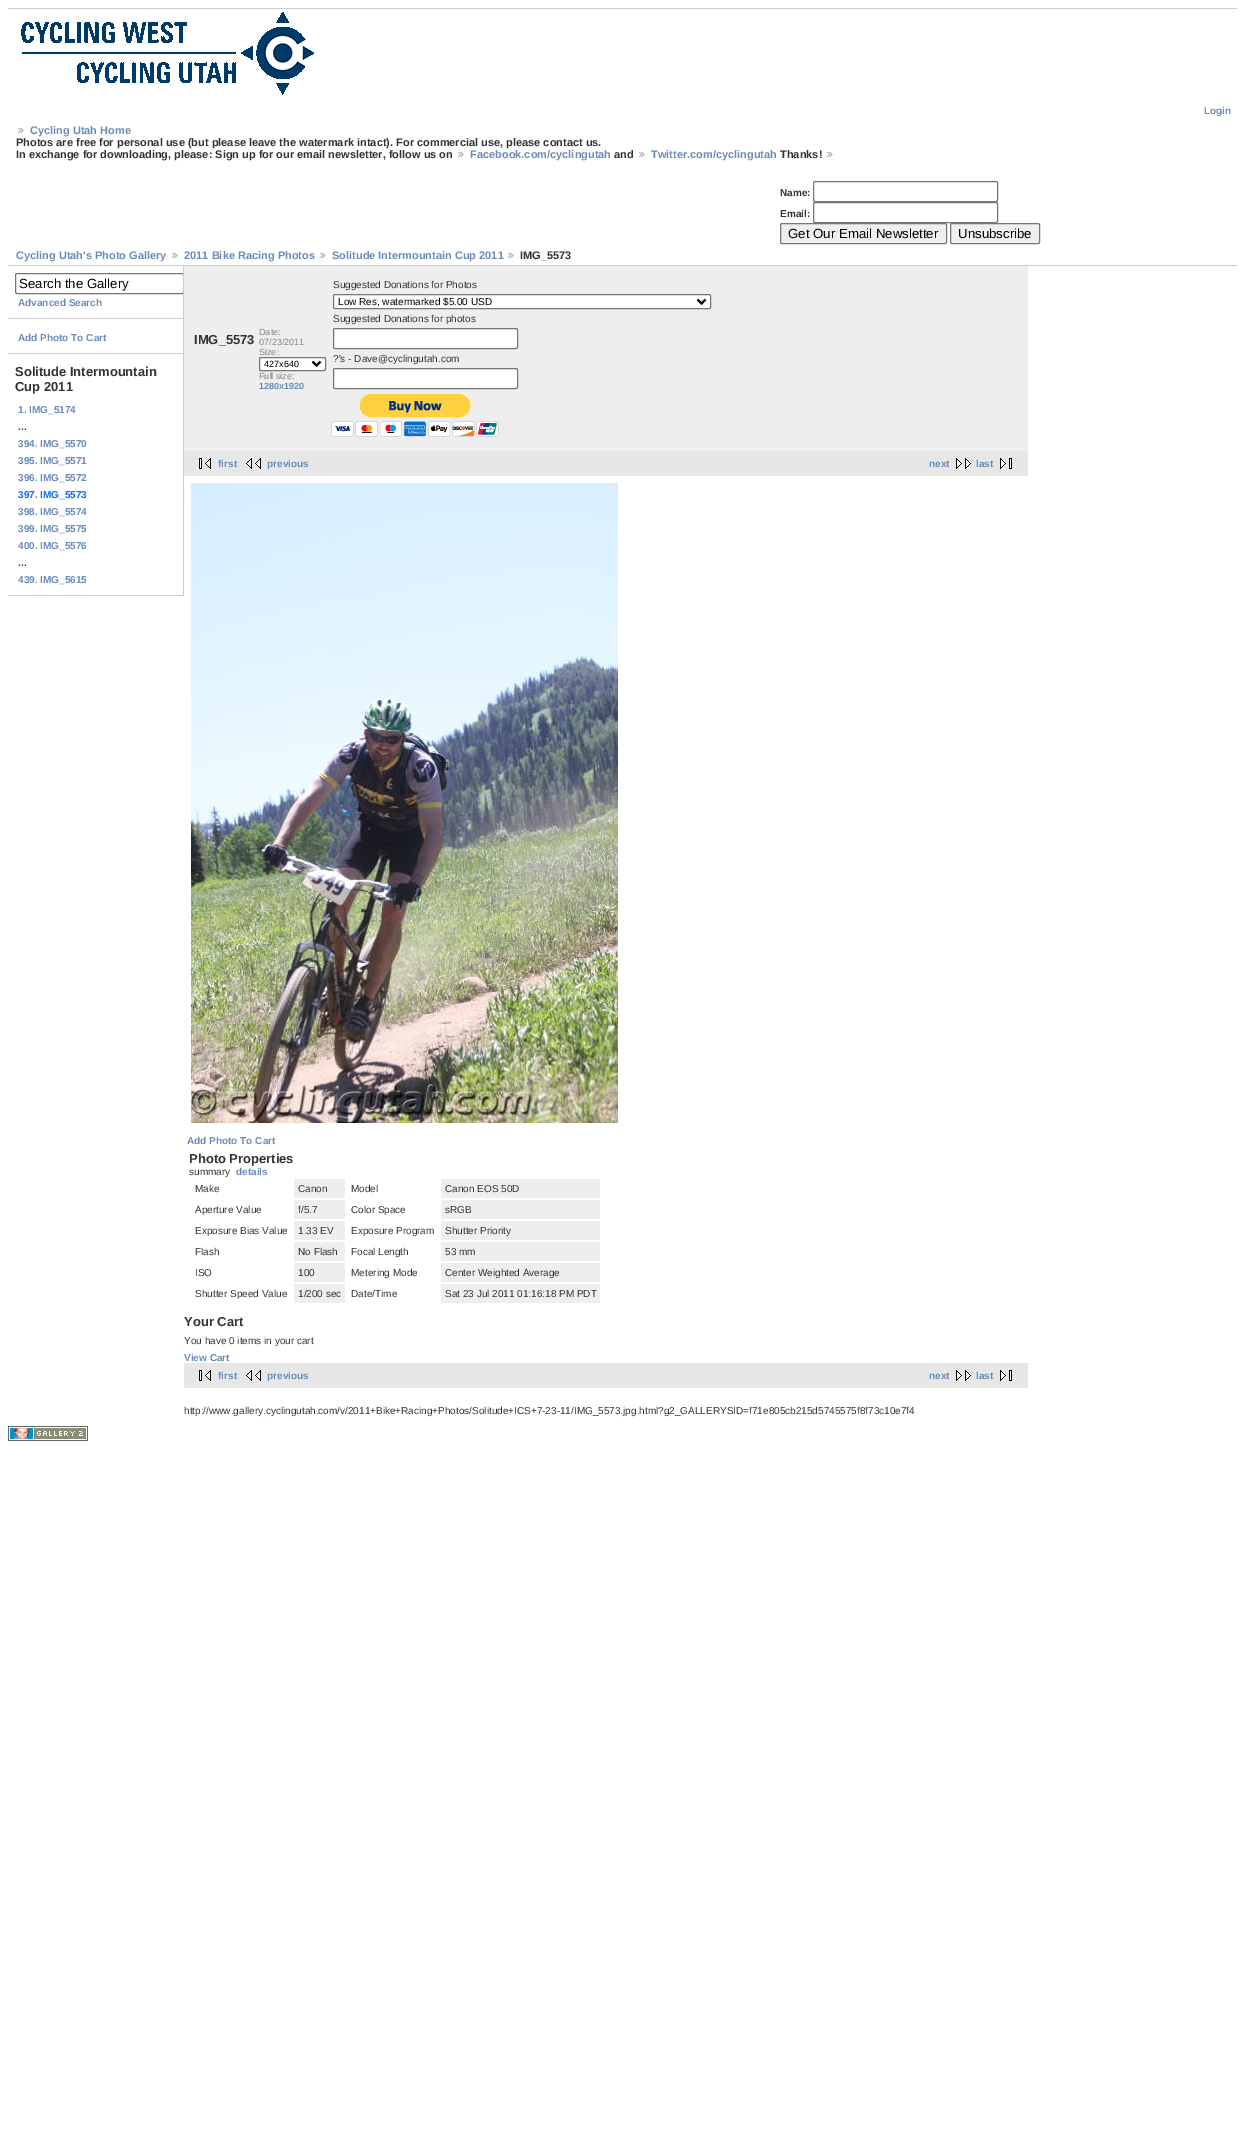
%!PS
<< /PageSize [1245 2133] >> setpagedevice
/rgb { 3 { 255 div 3 1 roll } repeat setrgbcolor } def
/font { [ exch dup neg 0 0 3 -1 roll 0 0 ] selectfont } def
/text { moveto show } def
/roundrect { 5 dict begin { /r /h /w /y /x } { exch def } forall
  x r add y moveto x w add y 2 copy h add r arct x w add y h add x 1 index r arct
  x y h add x y r arct x y 2 copy exch w add exch r arct closepath end } def
/picture { 5 dict begin { /h /w /y /x /name } { exch def } forall
  gsave x y translate w h scale
  w h 8 [w 0 0 h 0 0] name (r) file false 3 colorimage grestore end } def
0 2133 translate 1 -1 scale
4 setmiterlimit
255 255 255 rgb
0 0 1245 2133 rectfill
(img_01.rgb) 21 12 293 83 picture
204 204 204 rgb
8 8 1229 1 rectfill
8 265 1229 1 rectfill
(img_02.rgb) 18 128 6 5 picture
(img_02.rgb) 458 152 6 5 picture
(img_02.rgb) 639 152 6 5 picture
(img_02.rgb) 827 152 6 5 picture
118 118 118 rgb
813.5 181.5 184 20 1.5 roundrect stroke
813.5 202.5 184 20 1.5 roundrect stroke
239 239 239 rgb
780.5 223.5 166 20 1.5 roundrect gsave fill grestore
118 118 118 rgb
stroke
239 239 239 rgb
950.5 223.5 89 20 1.5 roundrect gsave fill grestore
118 118 118 rgb
stroke
(img_02.rgb) 172 253 6 5 picture
(img_02.rgb) 320 253 6 5 picture
(img_02.rgb) 508 253 6 5 picture
204 204 204 rgb
183 266 1 330 rectfill
8 318 175 1 rectfill
gsave
8 266 175 330 rectclip
118 118 118 rgb
15.5 273.5 168 20 1.5 roundrect stroke
grestore
8 353 175 1 rectfill
8 595 175 1 rectfill
238 238 238 rgb
184 266 844 185 rectfill
255 255 255 rgb
259.5 357.5 66 13 1.5 roundrect gsave fill grestore
118 118 118 rgb
stroke
0 0 0 rgb
2 setlinewidth
312.5 361.5 moveto 4 4 rlineto 4 -4 rlineto stroke
255 255 255 rgb
333.5 294.5 377 14 1.5 roundrect gsave fill grestore
118 118 118 rgb
1 setlinewidth
stroke
0 0 0 rgb
2 setlinewidth
697.5 299.5 moveto 4 4 rlineto 4 -4 rlineto stroke
255 255 255 rgb
333.5 328.5 184 20 1.5 roundrect gsave fill grestore
118 118 118 rgb
1 setlinewidth
stroke
255 255 255 rgb
333.5 368.5 184 20 1.5 roundrect gsave fill grestore
118 118 118 rgb
stroke
(img_03.rgb) 331 394 168 43 picture
231 231 231 rgb
184 451 844 25 rectfill
(img_04.rgb) 199 458 12 11 picture
(img_05.rgb) 246 458 15 11 picture
(img_06.rgb) 956 458 15 11 picture
(img_07.rgb) 1000 458 12 11 picture
(img_08.rgb) 191 483 427 640 picture
238 238 238 rgb
294 1179 51 19 rectfill
441 1179 159 19 rectfill
294 1200 51 19 rectfill
441 1200 159 19 rectfill
294 1221 51 19 rectfill
441 1221 159 19 rectfill
294 1242 51 19 rectfill
441 1242 159 19 rectfill
294 1263 51 19 rectfill
441 1263 159 19 rectfill
294 1284 51 19 rectfill
441 1284 159 19 rectfill
231 231 231 rgb
184 1363 844 25 rectfill
(img_04.rgb) 199 1370 12 11 picture
(img_05.rgb) 246 1370 15 11 picture
(img_06.rgb) 956 1370 15 11 picture
(img_07.rgb) 1000 1370 12 11 picture
(img_09.rgb) 8 1426 80 15 picture
/LiberationSans-Bold 10 font
107 140 183 rgb
(Login) 1204 114 text
/LiberationSans-Bold 11 font
(Cycling Utah Home) 30 134 text
51 51 51 rgb
(Photos are free for personal use \(but please leave the watermark intact\). For commercial use, please contact us.) 16 146 text
(In exchange for downloading, please: Sign up for our email newsletter, follow us on) 16 158 text
107 140 183 rgb
(Facebook.com/cyclingutah) 470 158 text
51 51 51 rgb
(and) 614 158 text
107 140 183 rgb
(Twitter.com/cyclingutah) 651 158 text
51 51 51 rgb
(Thanks!) 780 158 text
/LiberationSans-Bold 10 font
(Name:) 780 196 text
(Email:) 780 217 text
/LiberationSans-Regular 13.25 font
0 0 0 rgb
(Get Our Email Newsletter) 788 238 text
(Unsubscribe) 958 238 text
/LiberationSans-Bold 11 font
107 140 183 rgb
(Cycling Utah's Photo Gallery) 16 259 text
(2011 Bike Racing Photos) 184 259 text
(Solitude Intermountain Cup 2011) 332 259 text
51 51 51 rgb
(IMG_5573) 520 259 text
/LiberationSans-Regular 13.25 font
0 0 0 rgb
(Search the Gallery) 19 288 text
/LiberationSans-Bold 10 font
107 140 183 rgb
(Advanced Search) 18 306 text
(Add Photo To Cart) 18 341 text
/LiberationSans-Bold 13 font
51 51 51 rgb
(Solitude Intermountain) 15 376 text
(Cup 2011) 15 391 text
/LiberationSans-Bold 10 font
107 140 183 rgb
(1. IMG_5174) 18 413 text
51 51 51 rgb
(...) 18 430 text
107 140 183 rgb
(394. IMG_5570) 18 447 text
(395. IMG_5571) 18 464 text
(396. IMG_5572) 18 481 text
11 108 255 rgb
(397. IMG_5573) 18 498 text
107 140 183 rgb
(398. IMG_5574) 18 515 text
(399. IMG_5575) 18 532 text
(400. IMG_5576) 18 549 text
51 51 51 rgb
(...) 18 566 text
107 140 183 rgb
(439. IMG_5615) 18 583 text
/LiberationSans-Bold 13 font
51 51 51 rgb
(IMG_5573) 194 344 text
/LiberationSans-Regular 9 font
136 136 136 rgb
(Date:) 259 335 text
(07/23/2011) 259 345 text
(Size:) 259 355 text
0 0 0 rgb
(427x640) 264 367 text
136 136 136 rgb
(Full size:) 259 379 text
/LiberationSans-Bold 9 font
107 140 183 rgb
(1280x1920) 259 389 text
/LiberationSans-Regular 10 font
51 51 51 rgb
(Suggested Donations for Photos) 333 288 text
0 0 0 rgb
(Low Res, watermarked $5.00 USD) 338 305 text
51 51 51 rgb
(Suggested Donations for photos) 333 322 text
(?'s - Dave@cyclingutah.com) 333 362 text
/LiberationSans-Bold 10 font
107 140 183 rgb
(first) 218 467 text
(previous) 267 467 text
(next) 929 467 text
(last) 976 467 text
(Add Photo To Cart) 187 1144 text
/LiberationSans-Bold 13 font
51 51 51 rgb
(Photo Properties) 189 1163 text
/LiberationSans-Regular 10 font
(summary) 189 1175 text
/LiberationSans-Bold 10 font
107 140 183 rgb
(details) 236 1175 text
/LiberationSans-Regular 10 font
51 51 51 rgb
(Make) 195 1192 text
(Canon) 298 1192 text
(Model) 351 1192 text
(Canon EOS 50D) 445 1192 text
(Aperture Value) 195 1213 text
(f/5.7) 298 1213 text
(Color Space) 351 1213 text
(sRGB) 445 1213 text
(Exposure Bias Value) 195 1234 text
(1.33 EV) 298 1234 text
(Exposure Program) 351 1234 text
(Shutter Priority) 445 1234 text
(Flash) 195 1255 text
(No Flash) 298 1255 text
(Focal Length) 351 1255 text
(53 mm) 445 1255 text
(ISO) 195 1276 text
(100) 298 1276 text
(Metering Mode) 351 1276 text
(Center Weighted Average) 445 1276 text
(Shutter Speed Value) 195 1297 text
(1/200 sec) 298 1297 text
(Date/Time) 351 1297 text
(Sat 23 Jul 2011 01:16:18 PM PDT) 445 1297 text
/LiberationSans-Bold 13 font
(Your Cart) 184 1326 text
/LiberationSans-Regular 10 font
(You have 0 items in your cart) 184 1344 text
/LiberationSans-Bold 10 font
107 140 183 rgb
(View Cart) 184 1361 text
(first) 218 1379 text
(previous) 267 1379 text
(next) 929 1379 text
(last) 976 1379 text
/LiberationSans-Regular 10 font
51 51 51 rgb
(http://www.gallery.cyclingutah.com/v/2011+Bike+Racing+Photos/Solitude+ICS+7-23-11/IMG_5573.jpg.html?g2_GALLERYSID=f71e805cb215d5745575f8f73c10e7f4) 184 1414 text
showpage
